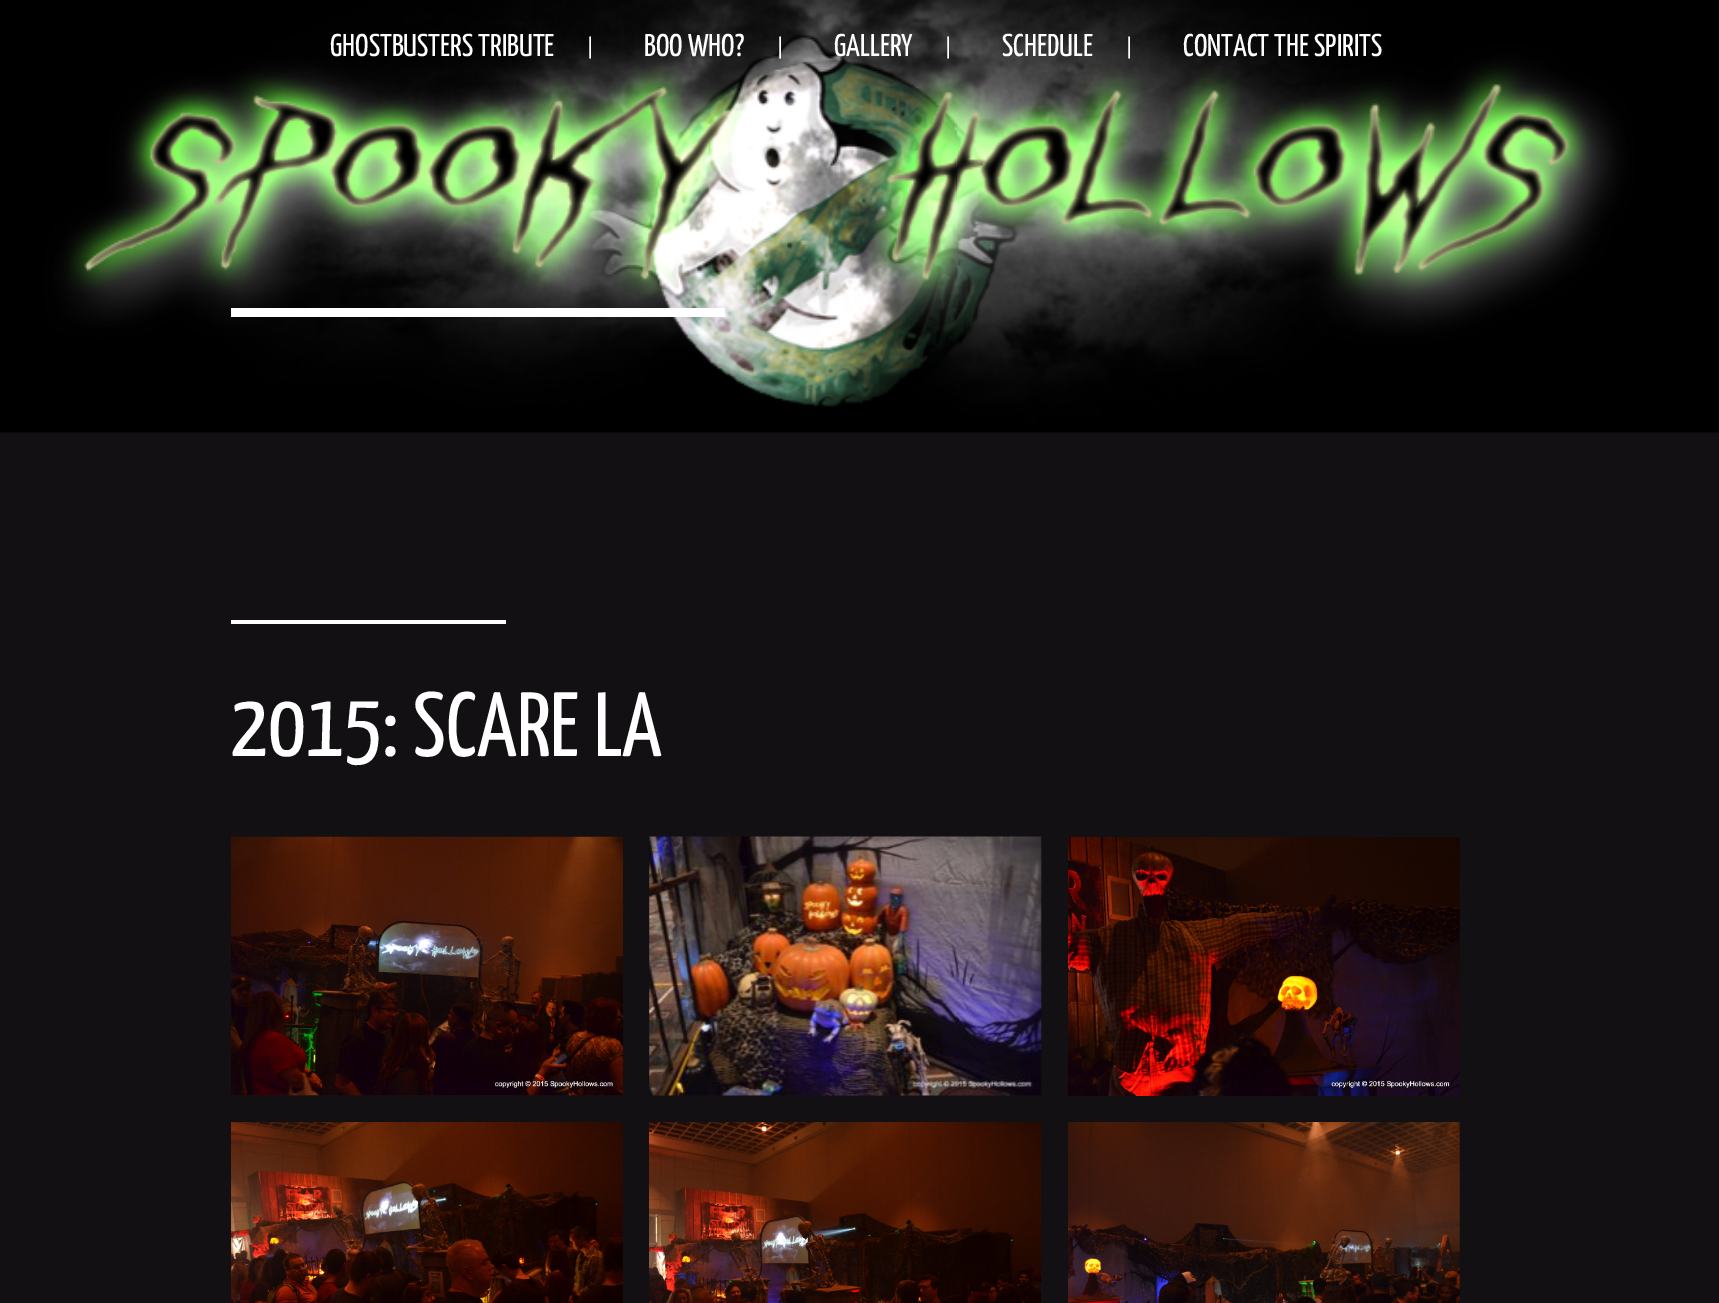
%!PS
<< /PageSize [1719 1303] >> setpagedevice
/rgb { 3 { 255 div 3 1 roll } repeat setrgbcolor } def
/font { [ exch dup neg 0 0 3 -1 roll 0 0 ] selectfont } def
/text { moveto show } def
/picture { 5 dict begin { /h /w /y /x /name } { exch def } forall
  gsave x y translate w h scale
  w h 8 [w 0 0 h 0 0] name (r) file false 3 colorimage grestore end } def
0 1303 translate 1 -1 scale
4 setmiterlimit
18 16 18 rgb
0 0 1719 1303 rectfill
(img_01.rgb) 0 0 1719 433 picture
255 255 255 rgb
231 308 494 9 rectfill
231 620 275 4 rectfill
(img_02.rgb) 231 836 392 260 picture
(img_03.rgb) 649 836 393 260 picture
(img_04.rgb) 1068 837 392 259 picture
(img_05.rgb) 231 1122 392 181 picture
(img_06.rgb) 649 1122 392 181 picture
(img_07.rgb) 1068 1122 392 181 picture
/YanoneKaffeesatz-ExtraLight 31.5 font
(GHOSTBUSTERS TRIBUTE) 330 56 text
/FiraMono-Regular 24 font
(|) 583 56 text
/YanoneKaffeesatz-ExtraLight 31.5 font
(BOO WHO?) 644 56 text
/FiraMono-Regular 24 font
(|) 773 56 text
/YanoneKaffeesatz-ExtraLight 31.5 font
(GALLERY) 834 56 text
/FiraMono-Regular 24 font
(|) 941 56 text
/YanoneKaffeesatz-ExtraLight 31.5 font
(SCHEDULE) 1002 56 text
/FiraMono-Regular 24 font
(|) 1122 56 text
/YanoneKaffeesatz-ExtraLight 31.5 font
(CONTACT THE SPIRITS) 1183 56 text
/YanoneKaffeesatz-ExtraLight 91 font
(2015: SCARE LA) 230 756 text
showpage
